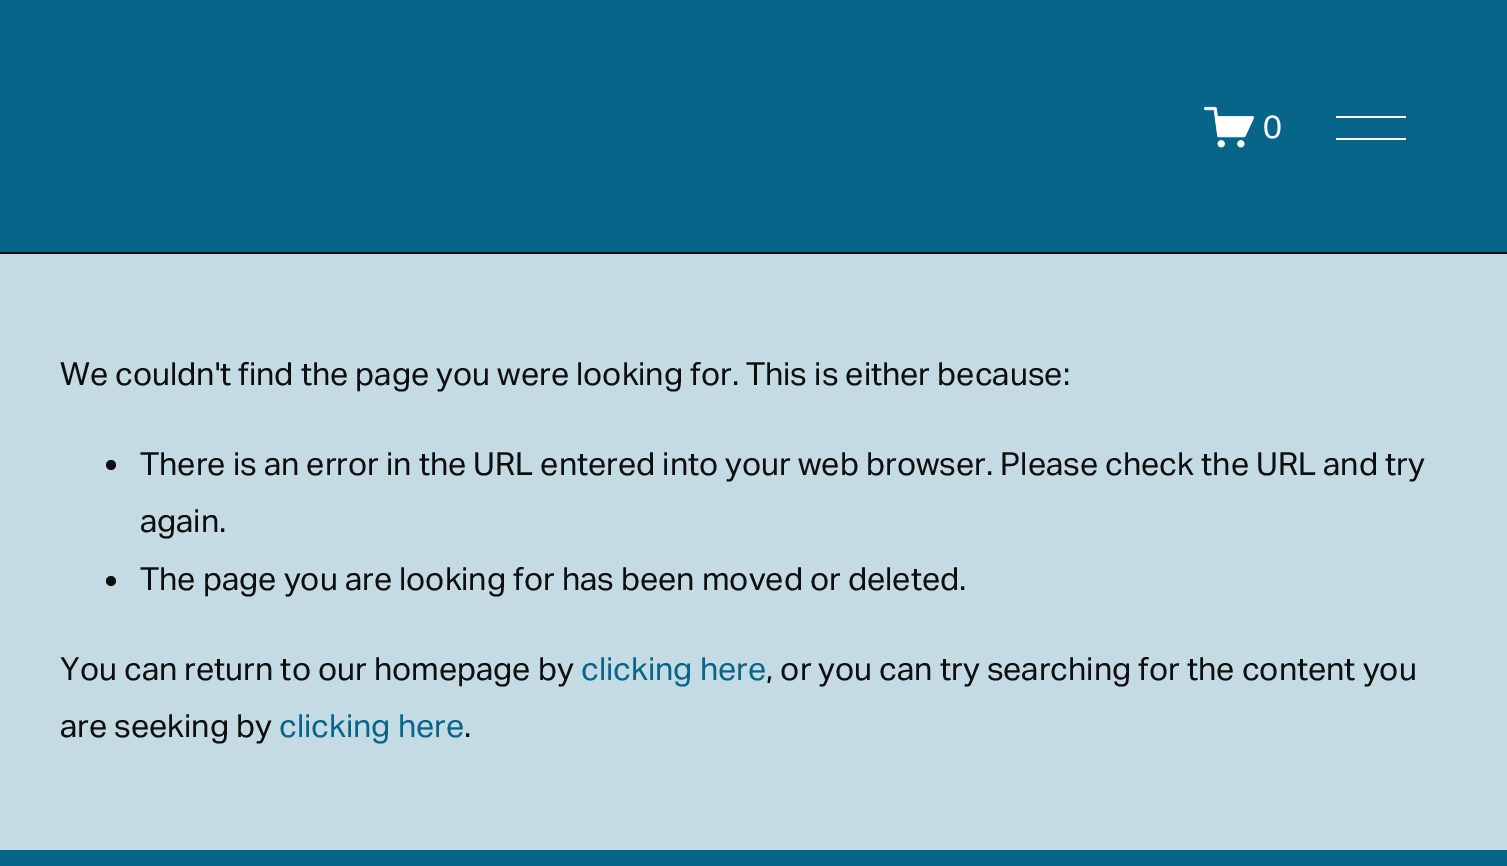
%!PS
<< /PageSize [1507 866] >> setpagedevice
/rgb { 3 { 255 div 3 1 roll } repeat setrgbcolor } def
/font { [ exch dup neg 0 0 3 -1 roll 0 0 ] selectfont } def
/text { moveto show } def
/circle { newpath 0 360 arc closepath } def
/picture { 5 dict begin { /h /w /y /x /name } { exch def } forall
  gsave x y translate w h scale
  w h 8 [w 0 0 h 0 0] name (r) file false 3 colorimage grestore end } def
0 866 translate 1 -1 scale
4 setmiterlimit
196 219 228 rgb
0 0 1507 866 rectfill
8 101 138 rgb
0 0 1507 252 rectfill
(img_01.rgb) 1204 106 50 42 picture
255 255 255 rgb
1336 116 70 2 rectfill
1336 138 70 2 rectfill
15 14 14 rgb
0 252 1507 2 rectfill
111 465 5 circle fill
111 581 5 circle fill
8 101 138 rgb
0 850 1507 16 rectfill
/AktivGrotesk-Regular 32 font
255 255 255 rgb
(0) 1263 138 text
15 14 14 rgb
(We couldn't find the page you were looking for. This is either because:) 60 385 text
(There is an error in the URL entered into your web browser. Please check the URL and try) 140 475 text
(again.) 140 532 text
(The page you are looking for has been moved or deleted.) 140 590 text
(You can return to our homepage by) 60 680 text
8 101 138 rgb
(clicking here) 581 680 text
15 14 14 rgb
(, or you can try searching for the content you) 766 680 text
(are seeking by) 60 737 text
8 101 138 rgb
(clicking here) 279 737 text
15 14 14 rgb
(.) 464 737 text
showpage
